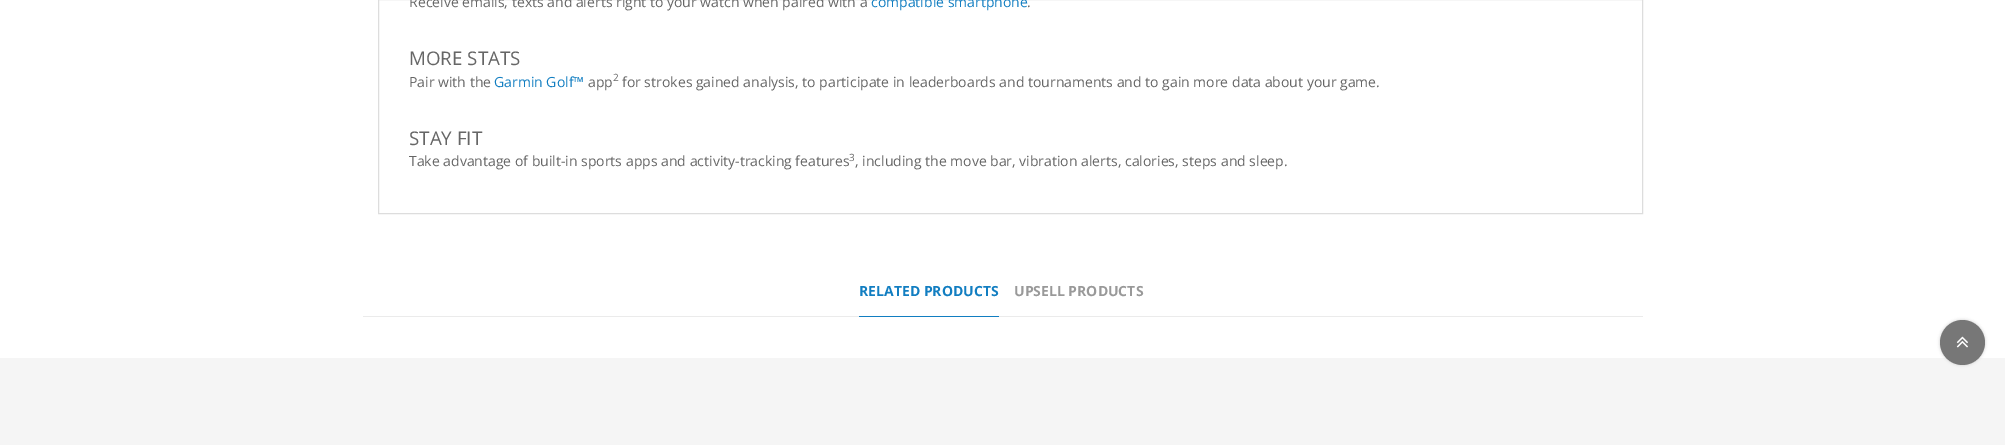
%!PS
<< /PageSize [2005 445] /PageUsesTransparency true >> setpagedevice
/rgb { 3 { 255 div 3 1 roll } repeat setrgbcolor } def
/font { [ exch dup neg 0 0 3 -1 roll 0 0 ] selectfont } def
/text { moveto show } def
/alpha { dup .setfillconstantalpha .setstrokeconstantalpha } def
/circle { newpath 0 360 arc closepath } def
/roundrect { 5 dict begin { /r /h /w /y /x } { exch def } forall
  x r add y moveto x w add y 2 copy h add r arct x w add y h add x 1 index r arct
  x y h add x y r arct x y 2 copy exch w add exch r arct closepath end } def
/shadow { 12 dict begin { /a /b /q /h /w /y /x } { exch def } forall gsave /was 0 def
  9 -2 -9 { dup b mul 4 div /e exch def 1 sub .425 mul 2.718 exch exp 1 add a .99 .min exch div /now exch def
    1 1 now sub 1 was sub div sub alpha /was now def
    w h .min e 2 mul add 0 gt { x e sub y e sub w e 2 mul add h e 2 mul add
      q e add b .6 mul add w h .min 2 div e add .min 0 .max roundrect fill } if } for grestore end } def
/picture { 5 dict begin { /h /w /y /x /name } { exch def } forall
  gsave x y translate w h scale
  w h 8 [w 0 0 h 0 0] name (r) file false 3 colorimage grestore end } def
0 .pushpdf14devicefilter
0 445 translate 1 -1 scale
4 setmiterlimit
255 255 255 rgb
0 0 2005 445 rectfill
221 221 221 rgb
378.5 -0.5 1264 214 rectstroke
235 235 235 rgb
363 316 1280 1 rectfill
255 255 255 rgb
863 281 moveto 132 0 rlineto 2 0 4 2 4 4 rcurveto 0 32 rlineto -140 0 rlineto 0 -32 rlineto 0 -2 2 -4 4 -4 rcurveto closepath fill
18 126 193 rgb
859 316 140 1 rectfill
245 245 245 rgb
0 358 2005 87 rectfill
204 204 204 rgb
1940 320 45 45 22.5 1.5 1 shadow
119 119 119 rgb
1962.5 342.5 22.5 circle fill
(img_01.rgb) 1956 336 12 12 picture
/OpenSans-Regular 14 font
102 102 102 rgb
(Receive emails, texts and alerts right to your watch when paired with a) 409 7 text
18 126 193 rgb
(compatible smartphone) 871 7 text
102 102 102 rgb
(.) 1027 7 text
/OpenSans-Regular 18.75 font
(MORE STATS) 409 65 text
/OpenSans-Regular 14 font
(Pair with the) 409 87 text
18 126 193 rgb
(Garmin Golf™) 494 87 text
102 102 102 rgb
(app) 588 87 text
/OpenSans-Regular 10 font
(2) 613 81 text
/OpenSans-Regular 14 font
(for strokes gained analysis, to participate in leaderboards and tournaments and to gain more data about your game.) 622 87 text
/OpenSans-Regular 18.75 font
(STAY FIT) 409 145 text
/OpenSans-Regular 14 font
(Take advantage of built-in sports apps and activity-tracking features) 409 166 text
/OpenSans-Regular 10 font
(3) 849 161 text
/OpenSans-Regular 14 font
(, including the move bar, vibration alerts, calories, steps and sleep.) 855 166 text
/OpenSans-Bold 14 font
18 126 193 rgb
(RELATED PRODUCTS) 859 296 text
153 153 153 rgb
(UPSELL PRODUCTS) 1014 296 text
.poppdf14devicefilter showpage
